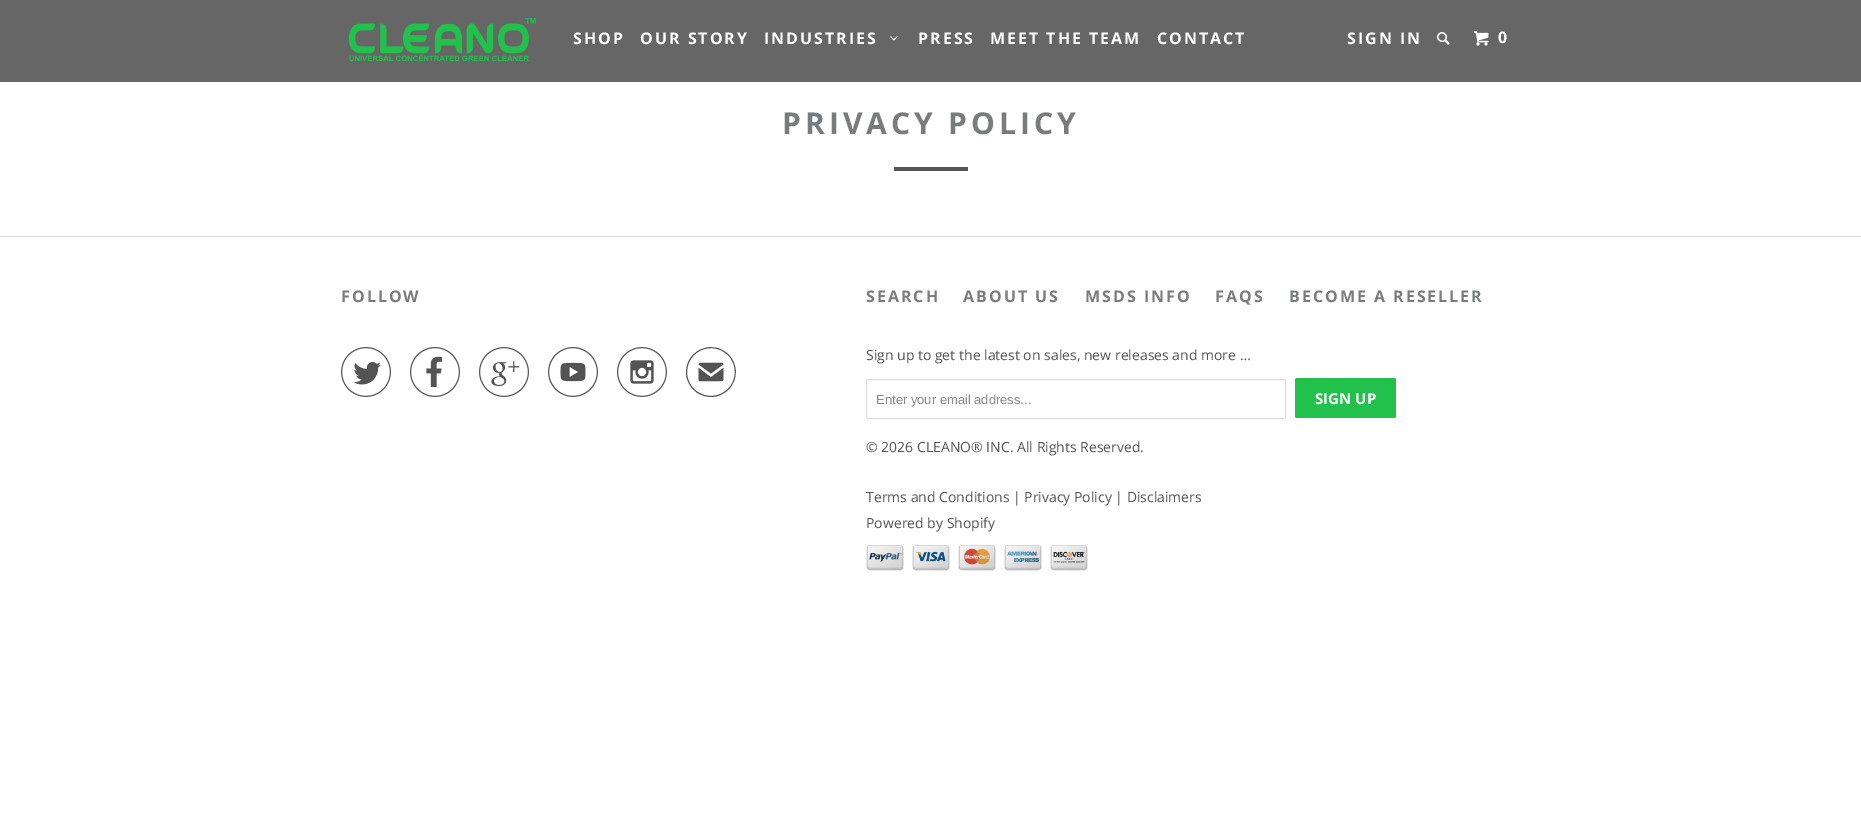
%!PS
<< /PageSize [1861 828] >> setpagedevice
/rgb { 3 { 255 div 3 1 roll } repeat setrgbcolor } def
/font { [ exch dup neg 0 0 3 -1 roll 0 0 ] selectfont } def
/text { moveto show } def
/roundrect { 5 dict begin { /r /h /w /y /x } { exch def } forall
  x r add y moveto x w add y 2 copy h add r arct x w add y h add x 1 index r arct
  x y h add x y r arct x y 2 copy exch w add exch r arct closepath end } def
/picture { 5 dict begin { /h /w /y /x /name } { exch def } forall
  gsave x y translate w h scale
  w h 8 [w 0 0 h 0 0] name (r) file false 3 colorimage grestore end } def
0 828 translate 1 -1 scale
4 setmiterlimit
255 255 255 rgb
0 0 1861 828 rectfill
102 102 102 rgb
0 0 1861 82 rectfill
(img_01.rgb) 348 18 188 44 picture
(img_02.rgb) 890 36 8 5 picture
(img_03.rgb) 1437 32 13 13 picture
(img_04.rgb) 1474 31 15 15 picture
84 84 84 rgb
894 167 74 4 rectfill
221 221 221 rgb
0 236 1861 1 rectfill
(img_05.rgb) 341 347 50 50 picture
(img_06.rgb) 410 347 50 50 picture
(img_07.rgb) 479 347 50 50 picture
(img_08.rgb) 548 347 50 50 picture
(img_09.rgb) 617 347 50 50 picture
223 223 223 rgb
866.5 379.5 419 39 1.5 roundrect stroke
33 193 75 rgb
1295 378 101 40 2 roundrect fill
(img_10.rgb) 866 545 38 26 picture
(img_11.rgb) 912 545 38 26 picture
(img_12.rgb) 958 545 38 26 picture
(img_13.rgb) 1004 545 38 26 picture
(img_14.rgb) 1050 545 38 26 picture
/OpenSans-Bold 16 font
255 255 255 rgb
573 44 moveto 2 0 (SHOP) ashow
640 44 moveto 2 0 (OUR STORY) ashow
764 44 moveto 2 0 (INDUSTRIES) ashow
918 44 moveto 2 0 (PRESS) ashow
990 44 moveto 2 0 (MEET THE TEAM) ashow
1157 44 moveto 2 0 (CONTACT) ashow
1347 44 moveto 2 0 (SIGN IN) ashow
1498 43 moveto 2 0 (0) ashow
/OpenSans-Bold 30 font
121 123 124 rgb
782 134 moveto 4 0 (PRIVACY POLICY) ashow
/OpenSans-Bold 16 font
341 302 moveto 2 0 (FOLLOW) ashow
/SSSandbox-Regular 50 font
84 84 84 rgb
(✉) 686 397 text
/OpenSans-Bold 16 font
121 123 124 rgb
866 302 moveto 2 0 (SEARCH) ashow
963 302 moveto 2 0 (ABOUT US) ashow
1085 302 moveto 2 0 (MSDS INFO) ashow
1215 302 moveto 2 0 (FAQS) ashow
1289 302 moveto 2 0 (BECOME A RESELLER) ashow
/OpenSans-Regular 14 font
84 84 84 rgb
(Sign up to get the latest on sales, new releases and more …) 866 360 text
/LiberationSans-Regular 13 font
136 136 136 rgb
(Enter your email address...) 876 404 text
/OpenSans-Bold 15 font
255 255 255 rgb
(SIGN UP) 1315 404 text
/OpenSans-Regular 14 font
84 84 84 rgb
(© 2026 CLEANO® INC. All Rights Reserved.) 866 452 text
(Terms and Conditions | Privacy Policy | Disclaimers) 866 502 text
(Powered by Shopify) 866 528 text
showpage
